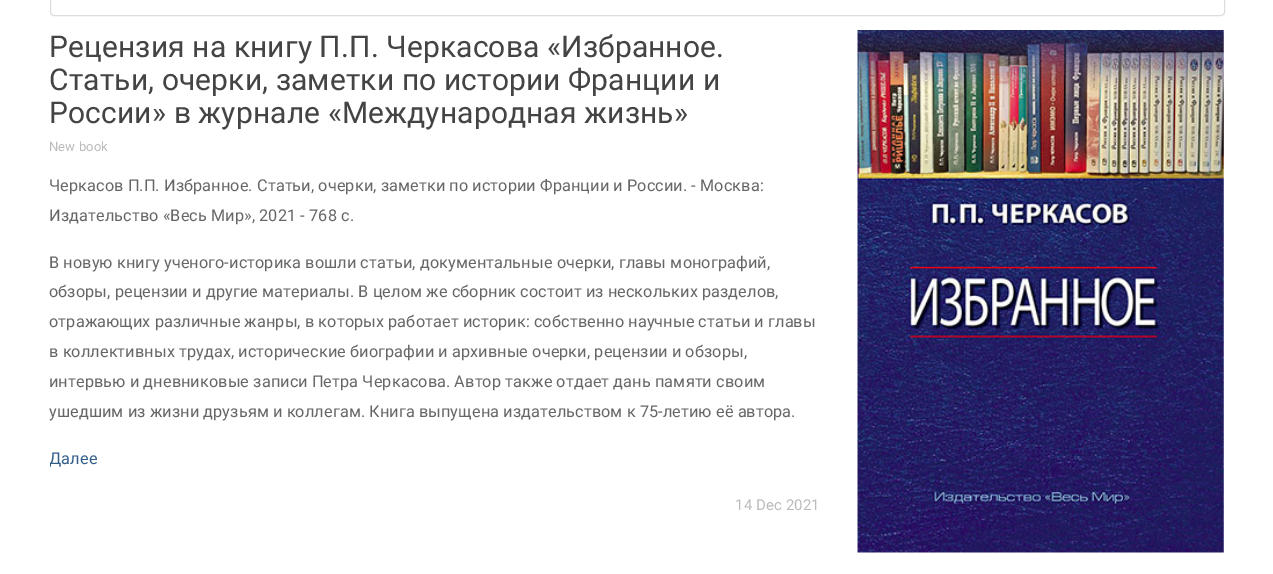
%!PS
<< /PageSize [1273 574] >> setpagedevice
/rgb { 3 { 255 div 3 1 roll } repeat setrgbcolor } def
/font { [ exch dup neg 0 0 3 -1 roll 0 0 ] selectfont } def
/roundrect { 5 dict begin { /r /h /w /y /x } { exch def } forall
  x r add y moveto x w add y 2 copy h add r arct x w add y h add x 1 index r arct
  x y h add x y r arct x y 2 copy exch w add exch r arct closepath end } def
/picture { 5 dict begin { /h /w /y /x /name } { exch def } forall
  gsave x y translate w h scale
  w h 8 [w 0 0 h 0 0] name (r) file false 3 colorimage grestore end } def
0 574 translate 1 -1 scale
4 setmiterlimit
255 255 255 rgb
0 0 1273 574 rectfill
221 221 221 rgb
50.5 -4.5 1174 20 3.5 roundrect stroke
(img_01.rgb) 857 30 367 523 picture
/Roboto-Regular 30 font
68 68 68 rgb
49 57 moveto 0.12 0 (Рецензия на книгу П.П. Черкасова «Избранное.) ashow
49 90 moveto 0.12 0 (Статьи, очерки, заметки по истории Франции и) ashow
49 123 moveto 0.12 0 (России» в журнале «Международная жизнь») ashow
/Roboto-Regular 13 font
187 187 187 rgb
49 151 moveto 0.12 0 (New book) ashow
/Roboto-Regular 16.25 font
102 102 102 rgb
49 191 moveto 0.12 0 (Черкасов П.П. Избранное. Статьи, очерки, заметки по истории Франции и России. - Москва:) ashow
49 221 moveto 0.12 0 (Издательство «Весь Мир», 2021 - 768 c.) ashow
49 268 moveto 0.12 0 (В новую книгу ученого-историка вошли статьи, документальные очерки, главы монографий,) ashow
49 297 moveto 0.12 0 (обзоры, рецензии и другие материалы. В целом же сборник состоит из нескольких разделов,) ashow
49 327 moveto 0.12 0 (отражающих различные жанры, в которых работает историк: собственно научные статьи и главы) ashow
49 357 moveto 0.12 0 (в коллективных трудах, исторические биографии и архивные очерки, рецензии и обзоры,) ashow
49 387 moveto 0.12 0 (интервью и дневниковые записи Петра Черкасова. Автор также отдает дань памяти своим) ashow
49 417 moveto 0.12 0 (ушедшим из жизни друзьям и коллегам. Книга выпущена издательством к 75-летию её автора.) ashow
gsave
50 30 770 506 rectclip
50 93 136 rgb
49 464 moveto 0.12 0 (Далее) ashow
grestore
/Roboto-Regular 15 font
187 187 187 rgb
735 510 moveto 0.12 0 (14 Dec 2021) ashow
showpage
